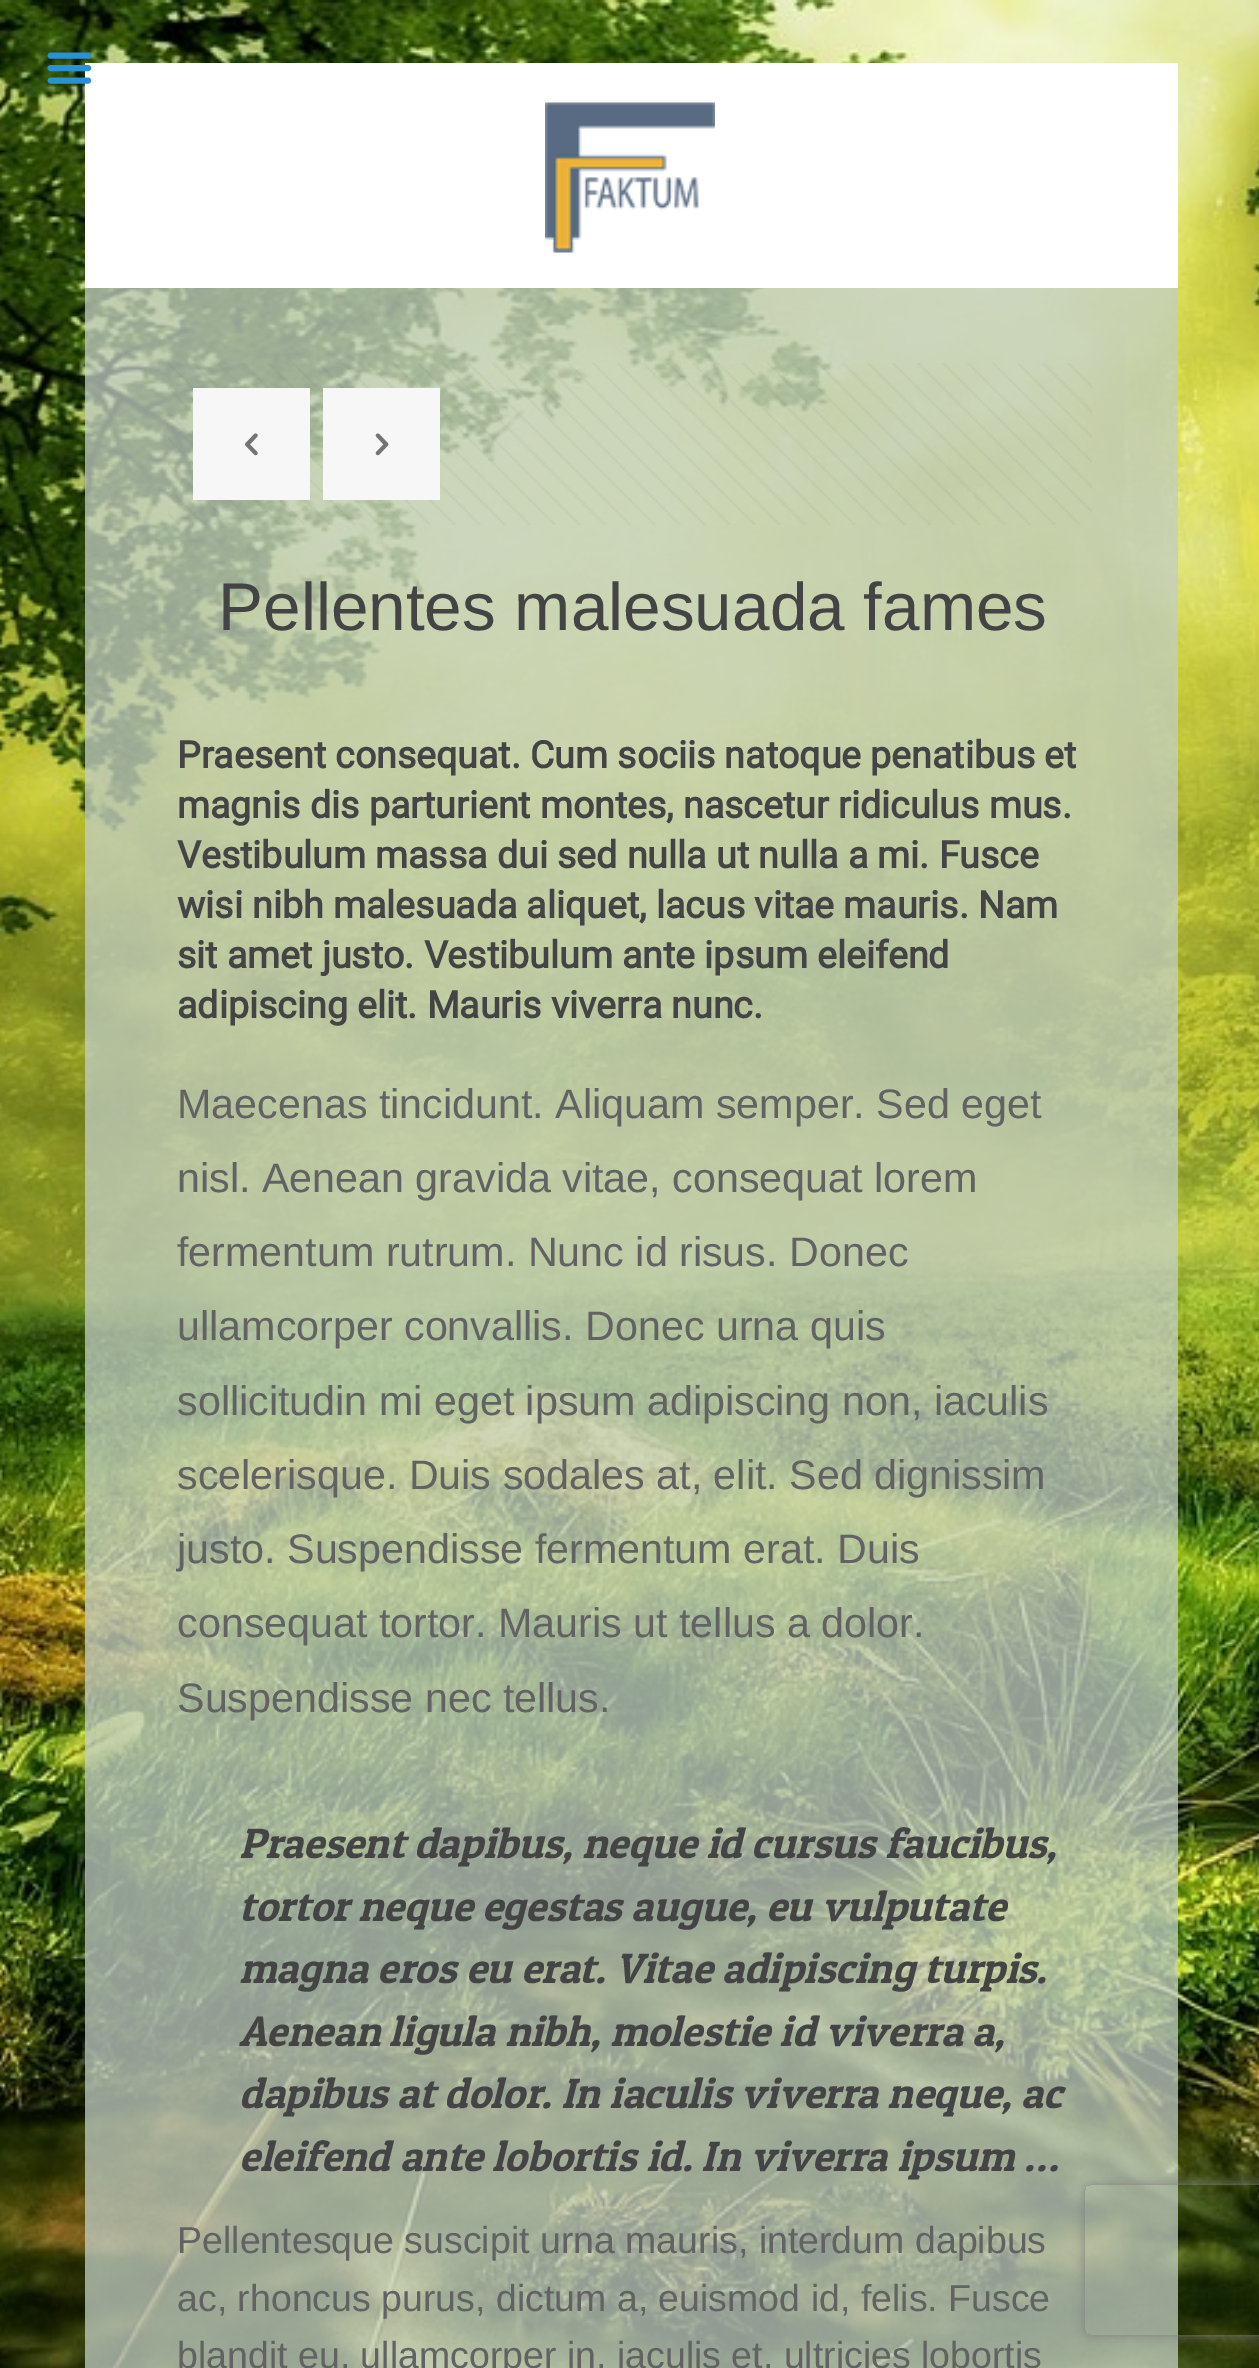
%!PS
<< /PageSize [1259 2368] /PageUsesTransparency true >> setpagedevice
/rgb { 3 { 255 div 3 1 roll } repeat setrgbcolor } def
/font { [ exch dup neg 0 0 3 -1 roll 0 0 ] selectfont } def
/text { moveto show } def
/alpha { dup .setfillconstantalpha .setstrokeconstantalpha } def
/roundrect { 5 dict begin { /r /h /w /y /x } { exch def } forall
  x r add y moveto x w add y 2 copy h add r arct x w add y h add x 1 index r arct
  x y h add x y r arct x y 2 copy exch w add exch r arct closepath end } def
/shadow { 12 dict begin { /a /b /q /h /w /y /x } { exch def } forall gsave /was 0 def
  9 -2 -9 { dup b mul 4 div /e exch def 1 sub .425 mul 2.718 exch exp 1 add a .99 .min exch div /now exch def
    1 1 now sub 1 was sub div sub alpha /was now def
    w h .min e 2 mul add 0 gt { x e sub y e sub w e 2 mul add h e 2 mul add
      q e add b .6 mul add w h .min 2 div e add .min 0 .max roundrect fill } if } for grestore end } def
/picture { 5 dict begin { /h /w /y /x /name } { exch def } forall
  gsave x y translate w h scale
  w h 8 [w 0 0 h 0 0] name (r) file false 3 colorimage grestore end } def
0 .pushpdf14devicefilter
0 2368 translate 1 -1 scale
4 setmiterlimit
255 255 255 rgb
0 0 1259 2368 rectfill
(img_01.rgb) 0 0 1259 2368 picture
0.5 alpha
194 206 195 rgb
85 288 1093 2080 rectfill
1 alpha
255 255 255 rgb
85 63 1093 225 rectfill
(img_02.rgb) 47 52 45 32 picture
(img_03.rgb) 545 102 170 151 picture
0.5 alpha
194 206 195 rgb
85 288 1093 2080 rectfill
1 alpha
(img_04.rgb) 168 363 924 162 picture
247 247 247 rgb
193 388 117 112 rectfill
(img_05.rgb) 245 433 13 23 picture
323 388 117 112 rectfill
(img_06.rgb) 375 433 14 23 picture
gsave
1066 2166 moveto 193 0 rlineto 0 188 rlineto -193 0 rlineto closepath 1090 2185 moveto 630 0 rlineto 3 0 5 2 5 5 rcurveto 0 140 rlineto 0 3 -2 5 -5 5 rcurveto -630 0 rlineto -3 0 -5 -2 -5 -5 rcurveto 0 -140 rlineto 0 -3 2 -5 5 -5 rcurveto closepath eoclip newpath
128 128 128 rgb
1085 2185 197 150 5 6 1 shadow
grestore
/LiberationSans-Regular 67.5 font
68 68 68 rgb
(Pellentes malesuada fames) 218 630 text
/Roboto-Bold 37.5 font
(Praesent consequat. Cum sociis natoque penatibus et) 177 768 text
(magnis dis parturient montes, nascetur ridiculus mus.) 177 818 text
(Vestibulum massa dui sed nulla ut nulla a mi. Fusce) 177 868 text
(wisi nibh malesuada aliquet, lacus vitae mauris. Nam) 177 918 text
(sit amet justo. Vestibulum ante ipsum eleifend) 177 968 text
(adipiscing elit. Mauris viverra nunc.) 177 1018 text
/LiberationSans-Regular 41.25 font
98 98 98 rgb
(Maecenas tincidunt. Aliquam semper. Sed eget) 177 1118 text
(nisl. Aenean gravida vitae, consequat lorem) 177 1192 text
(fermentum rutrum. Nunc id risus. Donec) 177 1266 text
(ullamcorper convallis. Donec urna quis) 177 1340 text
(sollicitudin mi eget ipsum adipiscing non, iaculis) 177 1415 text
(scelerisque. Duis sodales at, elit. Sed dignissim) 177 1489 text
(justo. Suspendisse fermentum erat. Duis) 177 1563 text
(consequat tortor. Mauris ut tellus a dolor.) 177 1637 text
(Suspendisse nec tellus.) 177 1712 text
/PatuaOne-Italic 42.5 font
68 68 68 rgb
(Praesent dapibus, neque id cursus faucibus,) 239 1858 text
(tortor neque egestas augue, eu vulputate) 239 1921 text
(magna eros eu erat. Vitae adipiscing turpis.) 239 1983 text
(Aenean ligula nibh, molestie id viverra a,) 239 2046 text
(dapibus at dolor. In iaculis viverra neque, ac) 239 2108 text
(eleifend ante lobortis id. In viverra ipsum …) 239 2171 text
/LiberationSans-Regular 37.5 font
98 98 98 rgb
(Pellentesque suscipit urna mauris, interdum dapibus) 177 2253 text
(ac, rhoncus purus, dictum a, euismod id, felis. Fusce) 177 2311 text
(blandit eu, ullamcorper in, iaculis et, ultricies lobortis) 177 2368 text
.poppdf14devicefilter showpage
